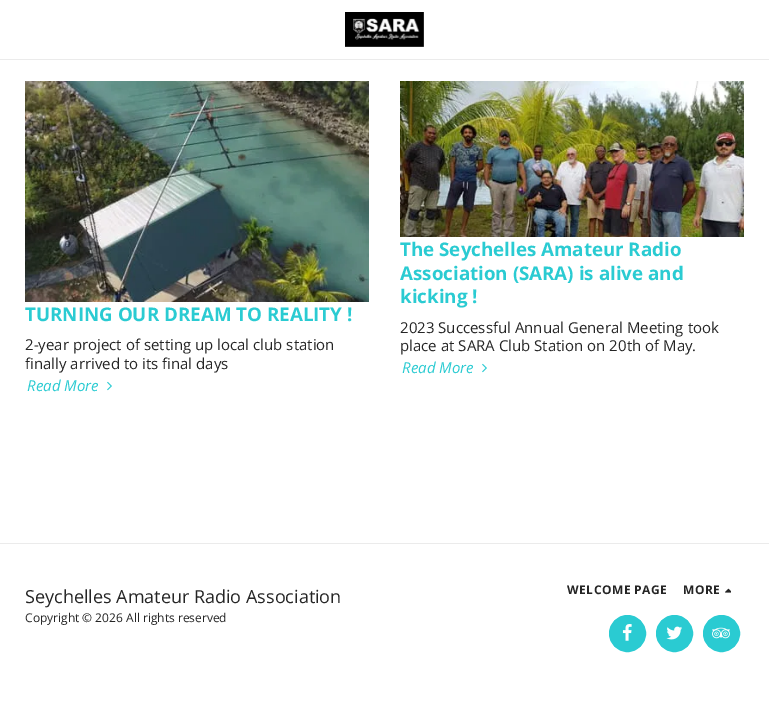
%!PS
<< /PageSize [769 707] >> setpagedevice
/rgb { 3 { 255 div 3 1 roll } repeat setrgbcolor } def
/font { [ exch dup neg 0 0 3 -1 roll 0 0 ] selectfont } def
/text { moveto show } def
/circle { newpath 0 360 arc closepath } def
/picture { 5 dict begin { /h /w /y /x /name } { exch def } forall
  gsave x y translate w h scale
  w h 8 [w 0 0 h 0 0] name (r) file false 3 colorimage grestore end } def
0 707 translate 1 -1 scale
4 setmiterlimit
255 255 255 rgb
0 0 769 707 rectfill
235 235 235 rgb
0 59 769 1 rectfill
(img_01.rgb) 345 12 79 35 picture
(img_02.rgb) 25 81 344 221 picture
(img_03.rgb) 107 381 5 10 picture
(img_04.rgb) 400 81 344 156 picture
(img_03.rgb) 482 363 5 10 picture
0 543 769 1 rectfill
(img_05.rgb) 725 588 6 5 picture
42 203 210 rgb
627.5 633.5 18 circle gsave fill grestore
stroke
(img_06.rgb) 622 624 10 17 picture
674.5 633.5 18 circle gsave fill grestore
stroke
(img_07.rgb) 666 626 16 14 picture
721.5 633.5 18 circle gsave fill grestore
stroke
(img_08.rgb) 712 627 18 12 picture
/OpenSans-Bold 18.75 font
(TURNING OUR DREAM TO REALITY !) 25 321 text
/OpenSans-Regular 15 font
37 37 37 rgb
(2-year project of setting up local club station) 25 350 text
(finally arrived to its final days) 25 369 text
/OpenSans-Italic 15 font
42 203 210 rgb
(Read More) 27 391 text
/OpenSans-Bold 18.75 font
(The Seychelles Amateur Radio) 400 256 text
(Association \(SARA\) is alive and) 400 280 text
(kicking !) 400 303 text
/OpenSans-Regular 15 font
37 37 37 rgb
(2023 Successful Annual General Meeting took) 400 333 text
(place at SARA Club Station on 20th of May.) 400 351 text
/OpenSans-Italic 15 font
42 203 210 rgb
(Read More) 402 373 text
/OpenSans-Regular 18 font
37 37 37 rgb
(Seychelles Amateur Radio Association) 25 603 text
/OpenSans-Regular 12 font
(Copyright © 2026 All rights reserved) 25 622 text
/OpenSans-Bold 12 font
567 594 moveto 0.5 0 (WELCOME PAGE) ashow
683 594 moveto 0.5 0 (MORE) ashow
showpage
